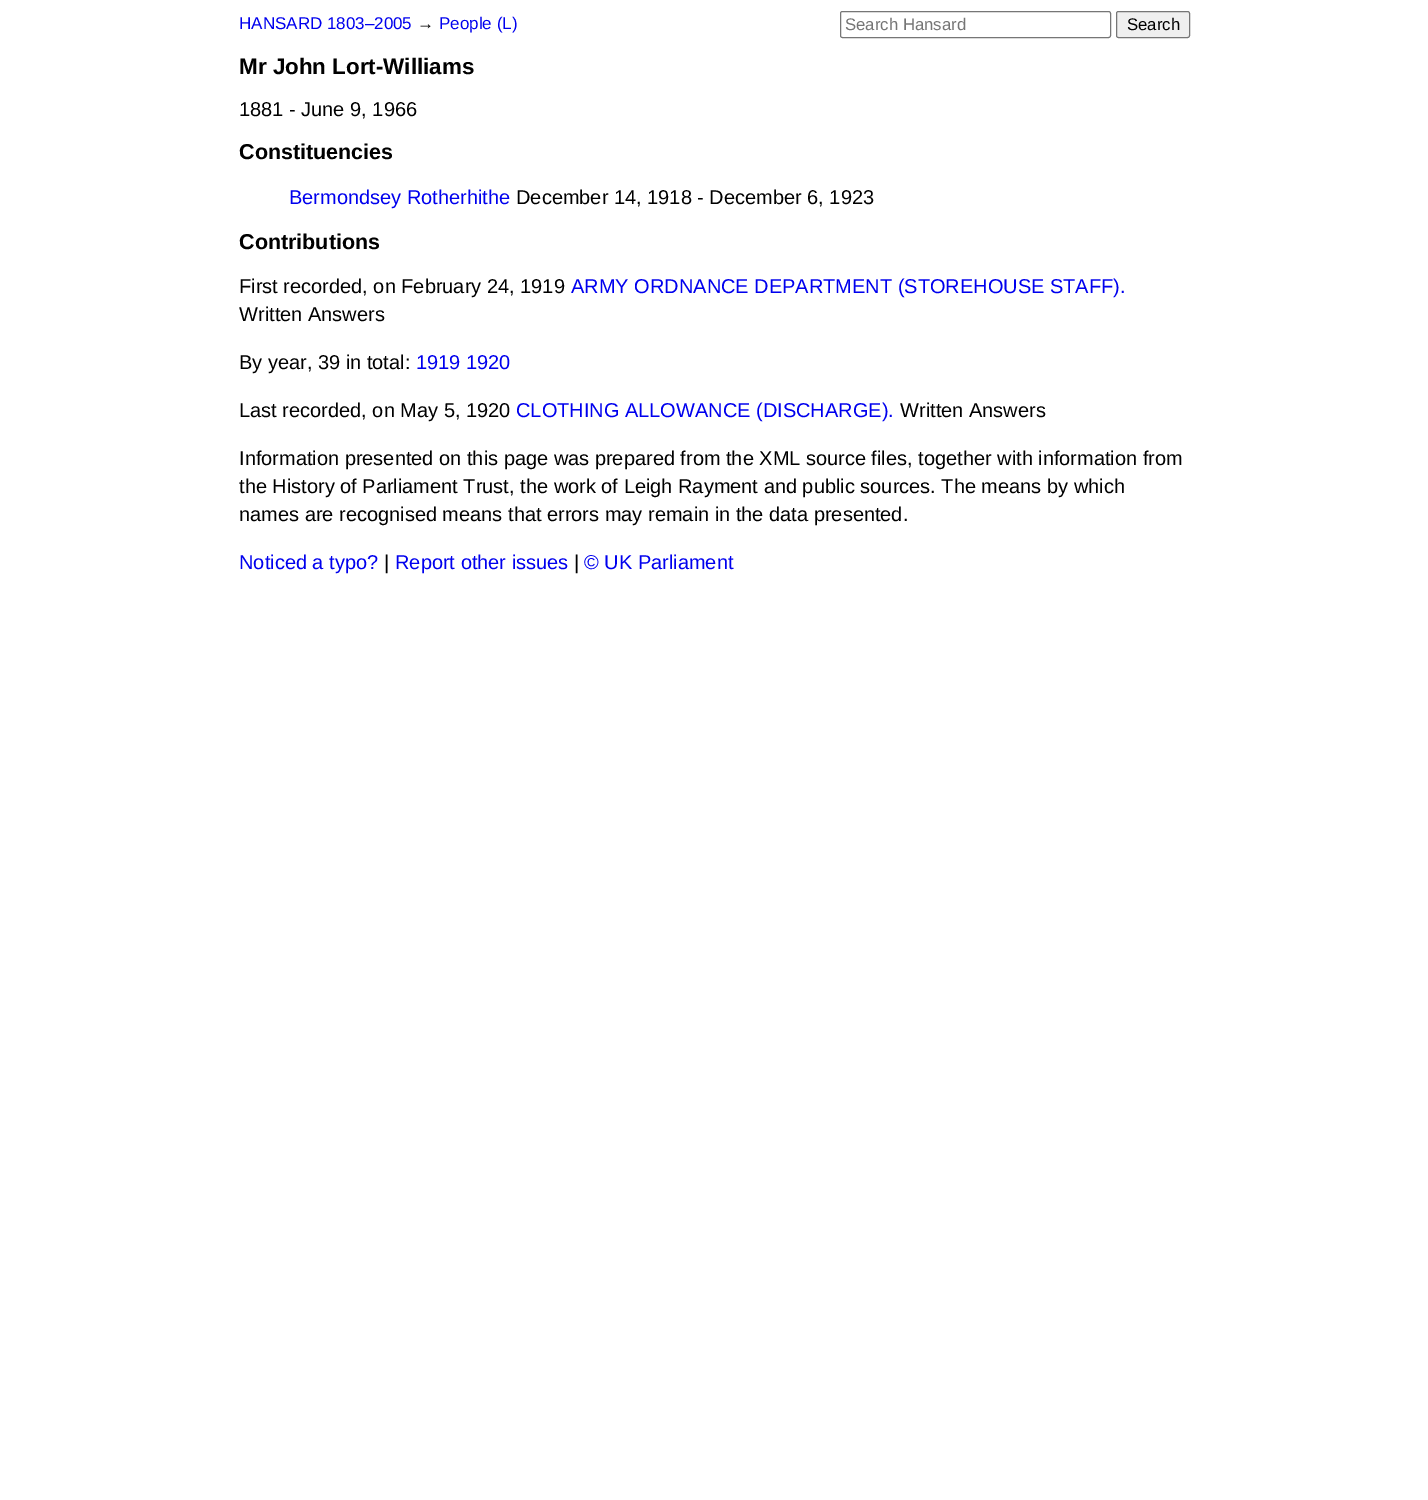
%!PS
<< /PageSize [1428 1500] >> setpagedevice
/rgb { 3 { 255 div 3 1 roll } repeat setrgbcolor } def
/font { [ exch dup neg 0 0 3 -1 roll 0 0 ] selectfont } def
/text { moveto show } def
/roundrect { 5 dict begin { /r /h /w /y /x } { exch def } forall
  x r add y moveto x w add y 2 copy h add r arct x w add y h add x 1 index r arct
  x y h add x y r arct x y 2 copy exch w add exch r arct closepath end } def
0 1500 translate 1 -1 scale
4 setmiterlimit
255 255 255 rgb
0 0 1428 1500 rectfill
118 118 118 rgb
840.5 11.5 270 26 2 roundrect stroke
239 239 239 rgb
1116.5 11.5 73 26 2 roundrect gsave fill grestore
118 118 118 rgb
stroke
/LiberationSans-Regular 17 font
0 0 238 rgb
(HANSARD 1803–2005) 239 29 text
0 0 0 rgb
(→) 417 29 text
0 0 238 rgb
(People \(L\)) 439 29 text
/LiberationSans-Regular 16.75 font
117 117 117 rgb
(Search Hansard) 845 30 text
0 0 0 rgb
(Search) 1127 30 text
/LiberationSans-Bold 22.4 font
(Mr John Lort-Williams) 239 74 text
/LiberationSans-Regular 20 font
(1881 - June 9, 1966) 239 116 text
/LiberationSans-Bold 21.5 font
(Constituencies) 239 159 text
/LiberationSans-Regular 20 font
0 0 238 rgb
(Bermondsey Rotherhithe) 289 204 text
0 0 0 rgb
(December 14, 1918 - December 6, 1923) 516 204 text
/LiberationSans-Bold 21.5 font
(Contributions) 239 249 text
/LiberationSans-Regular 20 font
(First recorded, on February 24, 1919) 239 293 text
0 0 238 rgb
(ARMY ORDNANCE DEPARTMENT \(STOREHOUSE STAFF\).) 571 293 text
0 0 0 rgb
(Written Answers) 239 321 text
(By year, 39 in total:) 239 369 text
0 0 238 rgb
(1919 1920) 416 369 text
0 0 0 rgb
(Last recorded, on May 5, 1920) 239 417 text
0 0 238 rgb
(CLOTHING ALLOWANCE \(DISCHARGE\).) 516 417 text
0 0 0 rgb
(Written Answers) 900 417 text
(Information presented on this page was prepared from the XML source files, together with information from) 239 465 text
(the History of Parliament Trust, the work of Leigh Rayment and public sources. The means by which) 239 493 text
(names are recognised means that errors may remain in the data presented.) 239 521 text
0 0 238 rgb
(Noticed a typo?) 239 569 text
0 0 0 rgb
(|) 384 569 text
0 0 238 rgb
(Report other issues) 395 569 text
0 0 0 rgb
(|) 574 569 text
0 0 238 rgb
(© UK Parliament) 584 569 text
showpage
